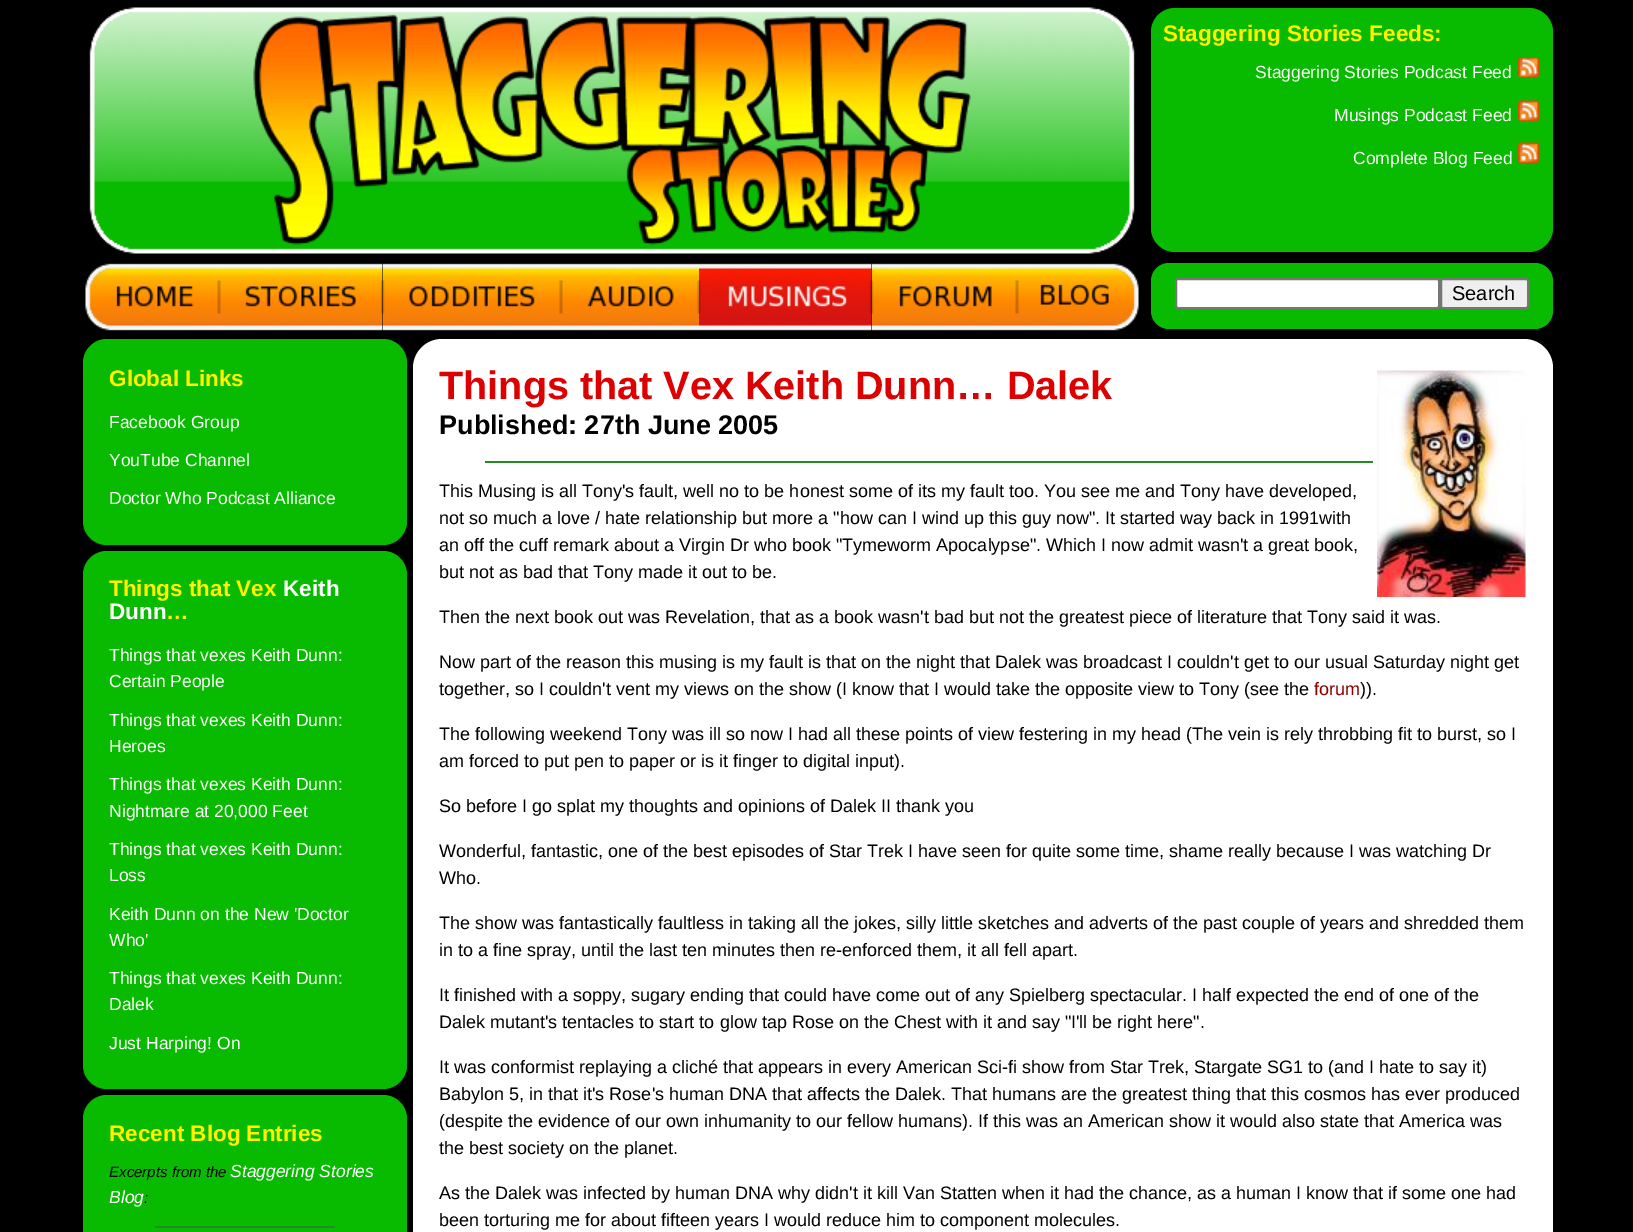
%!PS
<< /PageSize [1633 1232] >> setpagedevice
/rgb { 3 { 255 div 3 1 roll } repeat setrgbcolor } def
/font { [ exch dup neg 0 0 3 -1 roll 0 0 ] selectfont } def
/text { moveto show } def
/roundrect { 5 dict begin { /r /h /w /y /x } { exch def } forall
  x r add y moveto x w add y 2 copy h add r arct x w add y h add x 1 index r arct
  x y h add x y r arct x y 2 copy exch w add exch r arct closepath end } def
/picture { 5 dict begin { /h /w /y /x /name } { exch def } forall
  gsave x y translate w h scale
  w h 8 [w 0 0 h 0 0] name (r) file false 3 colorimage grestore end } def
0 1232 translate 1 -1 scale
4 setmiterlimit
0 0 0 rgb
0 0 1633 1232 rectfill
(img_01.rgb) 89 7 1046 247 picture
9 187 0 rgb
1151 8 402 244 24 roundrect fill
(img_02.rgb) 1518 57 21 21 picture
(img_03.rgb) 1518 100 21 22 picture
(img_03.rgb) 1518 142 21 22 picture
(img_04.rgb) 85 263 134 68 picture
(img_05.rgb) 219 263 164 68 picture
(img_06.rgb) 382 263 179 68 picture
(img_07.rgb) 561 263 138 68 picture
(img_08.rgb) 699 263 173 68 picture
(img_09.rgb) 871 263 146 68 picture
(img_10.rgb) 1017 263 122 68 picture
1151 263 402 66 18 roundrect fill
255 255 255 rgb
1176 279 263 29 2 roundrect gsave fill grestore
118 118 118 rgb
2 setlinewidth
stroke
239 239 239 rgb
1441 279 87 29 2 roundrect gsave fill grestore
118 118 118 rgb
stroke
9 187 0 rgb
83 339 324 206 24 roundrect fill
83 551 324 538 24 roundrect fill
83 1095 324 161 24 roundrect fill
34 139 34 rgb
155 1226 180 2 rectfill
255 255 255 rgb
413 339 1140 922 29 roundrect fill
(img_11.rgb) 1377 370 149 227 picture
34 139 34 rgb
485 461 888 2 rectfill
/LiberationSans-Bold 22.5 font
255 241 0 rgb
(Staggering Stories Feeds:) 1163 41 text
/LiberationSans-Regular 17.5 font
255 255 255 rgb
(Staggering Stories Podcast Feed) 1255 78 text
(Musings Podcast Feed) 1334 121 text
(Complete Blog Feed) 1353 164 text
/LiberationSans-Regular 20 font
0 0 0 rgb
(Search) 1452 300 text
/LiberationSans-Bold 22.5 font
255 241 0 rgb
(Global Links) 109 386 text
/LiberationSans-Regular 17.5 font
255 255 255 rgb
(Facebook Group) 109 428 text
(YouTube Channel) 109 466 text
(Doctor Who Podcast Alliance) 109 504 text
/LiberationSans-Bold 22.5 font
255 241 0 rgb
(Things that Vex) 109 596 text
255 255 255 rgb
(Keith) 283 596 text
(Dunn) 109 619 text
255 241 0 rgb
(…) 166 619 text
/LiberationSans-Regular 17.5 font
255 255 255 rgb
(Things that vexes Keith Dunn:) 109 661 text
(Certain People) 109 687 text
(Things that vexes Keith Dunn:) 109 726 text
(Heroes) 109 752 text
(Things that vexes Keith Dunn:) 109 790 text
(Nightmare at 20,000 Feet) 109 817 text
(Things that vexes Keith Dunn:) 109 855 text
(Loss) 109 881 text
(Keith Dunn on the New 'Doctor) 109 920 text
(Who') 109 946 text
(Things that vexes Keith Dunn:) 109 984 text
(Dalek) 109 1010 text
(Just Harping! On) 109 1049 text
/LiberationSans-Bold 22.5 font
255 241 0 rgb
(Recent Blog Entries) 109 1141 text
/LiberationSans-Italic 15 font
0 0 0 rgb
(Excerpts from the) 109 1177 text
/LiberationSans-Italic 17.5 font
255 255 255 rgb
(Staggering Stories) 230 1177 text
(Blog) 109 1203 text
/LiberationSans-Italic 15 font
0 0 0 rgb
(:) 144 1203 text
/LiberationSans-Bold 39.6 font
221 0 0 rgb
(Things that Vex Keith Dunn… Dalek) 439 399 text
/LiberationSans-Bold 27 font
0 0 0 rgb
(Published: 27th June 2005) 439 434 text
/LiberationSans-Regular 18 font
(This Musing is all Tony's fault, well no to be honest some of its my fault too. You see me and Tony have developed,) 439 497 text
(not so much a love / hate relationship but more a "how can I wind up this guy now". It started way back in 1991with) 439 524 text
(an off the cuff remark about a Virgin Dr who book "Tymeworm Apocalypse". Which I now admit wasn't a great book,) 439 551 text
(but not as bad that Tony made it out to be.) 439 578 text
(Then the next book out was Revelation, that as a book wasn't bad but not the greatest piece of literature that Tony said it was.) 439 623 text
(Now part of the reason this musing is my fault is that on the night that Dalek was broadcast I couldn't get to our usual Saturday night get) 439 668 text
(together, so I couldn't vent my views on the show \(I know that I would take the opposite view to Tony \(see the) 439 695 text
139 0 0 rgb
(forum) 1314 695 text
0 0 0 rgb
(\)\).) 1360 695 text
(The following weekend Tony was ill so now I had all these points of view festering in my head \(The vein is rely throbbing fit to burst, so I) 439 740 text
(am forced to put pen to paper or is it finger to digital input\).) 439 767 text
(So before I go splat my thoughts and opinions of Dalek II thank you) 439 812 text
(Wonderful, fantastic, one of the best episodes of Star Trek I have seen for quite some time, shame really because I was watching Dr) 439 857 text
(Who.) 439 884 text
(The show was fantastically faultless in taking all the jokes, silly little sketches and adverts of the past couple of years and shredded them) 439 929 text
(in to a fine spray, until the last ten minutes then re-enforced them, it all fell apart.) 439 956 text
(It finished with a soppy, sugary ending that could have come out of any Spielberg spectacular. I half expected the end of one of the) 439 1001 text
(Dalek mutant's tentacles to start to glow tap Rose on the Chest with it and say "I'll be right here".) 439 1028 text
(It was conformist replaying a cliché that appears in every American Sci-fi show from Star Trek, Stargate SG1 to \(and I hate to say it\)) 439 1073 text
(Babylon 5, in that it's Rose's human DNA that affects the Dalek. That humans are the greatest thing that this cosmos has ever produced) 439 1100 text
(\(despite the evidence of our own inhumanity to our fellow humans\). If this was an American show it would also state that America was) 439 1127 text
(the best society on the planet.) 439 1154 text
(As the Dalek was infected by human DNA why didn't it kill Van Statten when it had the chance, as a human I know that if some one had) 439 1199 text
(been torturing me for about fifteen years I would reduce him to component molecules.) 439 1226 text
showpage
